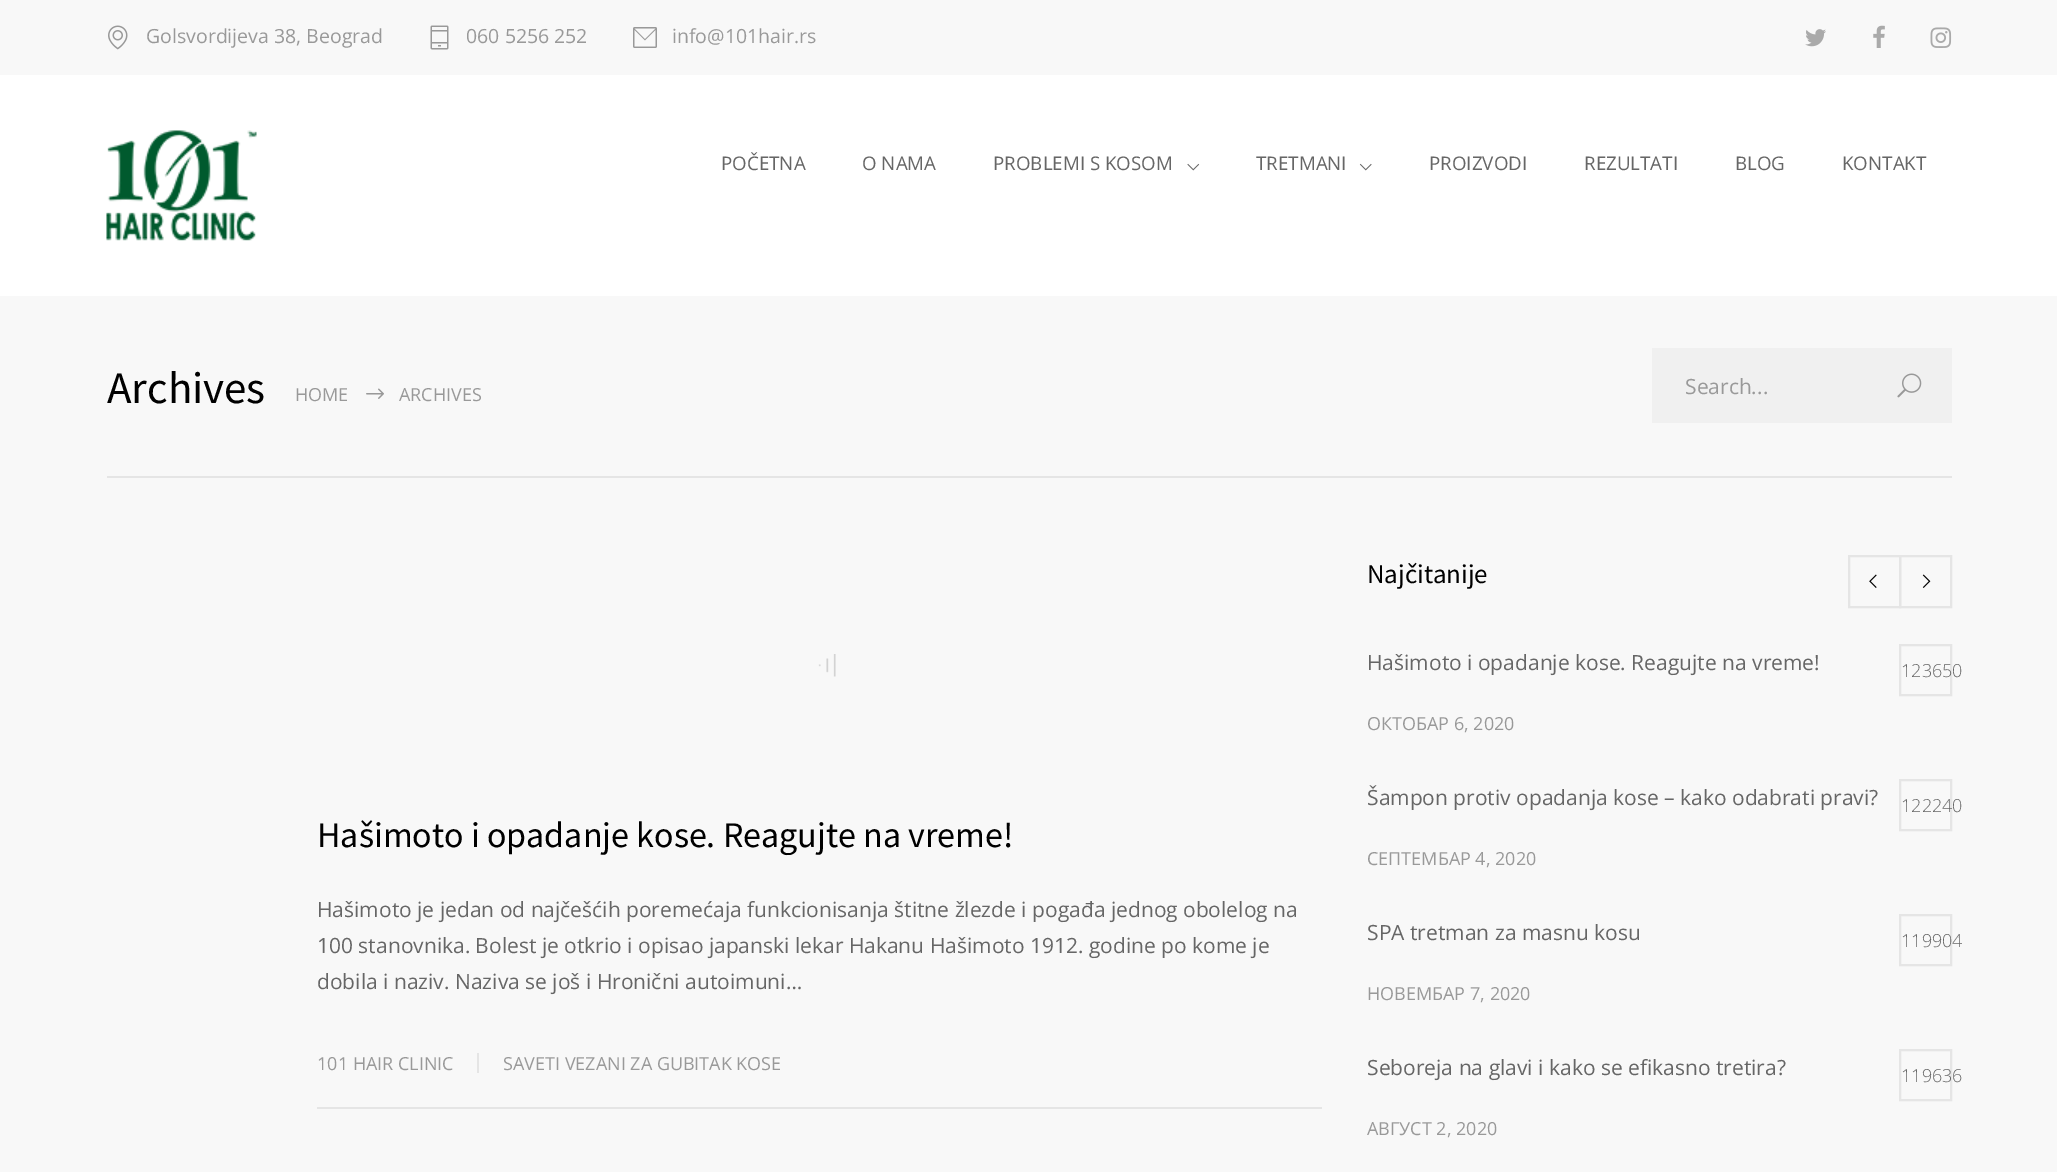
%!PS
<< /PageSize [2057 1172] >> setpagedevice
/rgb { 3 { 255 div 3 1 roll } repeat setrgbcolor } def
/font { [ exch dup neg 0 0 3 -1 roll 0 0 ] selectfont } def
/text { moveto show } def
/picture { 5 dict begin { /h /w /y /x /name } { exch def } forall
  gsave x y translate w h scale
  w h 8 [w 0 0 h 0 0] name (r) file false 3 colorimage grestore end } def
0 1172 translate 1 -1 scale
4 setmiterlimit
248 248 248 rgb
0 0 2057 1172 rectfill
(img_01.rgb) 108 25 20 25 picture
(img_02.rgb) 430 25 19 25 picture
(img_03.rgb) 633 27 24 21 picture
(img_04.rgb) 1805 29 21 18 picture
(img_05.rgb) 1873 25 12 23 picture
(img_06.rgb) 1930 27 22 21 picture
255 255 255 rgb
0 75 2057 221 rectfill
(img_07.rgb) 106 130 151 111 picture
(img_08.rgb) 1187 163 13 8 picture
(img_09.rgb) 1359 163 13 8 picture
229 229 229 rgb
107 476 1845 2 rectfill
(img_10.rgb) 366 388 18 11 picture
240 240 240 rgb
1652 348 300 75 rectfill
(img_11.rgb) 1897 373 25 25 picture
229 229 229 rgb
317 1107 1005 2 rectfill
(img_12.rgb) 818 654 18 23 picture
477 1053 2 20 rectfill
2 setlinewidth
1849 556 51 51 rectstroke
(img_13.rgb) 1869 574 8 14 picture
1900 556 51 51 rectstroke
(img_14.rgb) 1922 574 9 14 picture
1900 645 51 50 rectstroke
1900 780 51 50 rectstroke
1900 915 51 50 rectstroke
1900 1050 51 50 rectstroke
/OpenSans-Regular 19.5 font
153 153 153 rgb
(Golsvordijeva 38, Beograd) 146 43 text
(060 5256 252) 466 43 text
(info@101hair.rs) 672 43 text
/OpenSans-Regular 18.75 font
102 102 102 rgb
(POČETNA) 721 170 text
(O NAMA) 862 170 text
(PROBLEMI S KOSOM) 993 170 text
(TRETMANI) 1256 170 text
(PROIZVODI) 1429 170 text
(REZULTATI) 1584 170 text
(BLOG) 1735 170 text
(KONTAKT) 1842 170 text
/SourceSansPro-Regular 45 font
0 0 0 rgb
(Archives) 107 403 text
/OpenSans-Regular 18 font
153 153 153 rgb
(HOME) 295 401 text
(ARCHIVES) 399 401 text
/OpenSans-Regular 21 font
(Search...) 1685 394 text
/SourceSansPro-Regular 36 font
0 0 0 rgb
(Hašimoto i opadanje kose. Reagujte na vreme!) 317 847 text
/OpenSans-Regular 21 font
102 102 102 rgb
(Hašimoto je jedan od najčešćih poremećaja funkcionisanja štitne žlezde i pogađa jednog obolelog na) 317 917 text
(100 stanovnika. Bolest je otkrio i opisao japanski lekar Hakanu Hašimoto 1912. godine po kome je) 317 953 text
(dobila i naziv. Naziva se još i Hronični autoimuni…) 317 989 text
/OpenSans-Regular 18 font
153 153 153 rgb
(101 HAIR CLINIC) 317 1070 text
(SAVETI VEZANI ZA GUBITAK KOSE) 503 1070 text
/SourceSansPro-Regular 27 font
0 0 0 rgb
(Najčitanije) 1367 583 text
/OpenSans-Regular 21 font
102 102 102 rgb
(Hašimoto i opadanje kose. Reagujte na vreme!) 1367 670 text
/OpenSans-Light 18 font
(123650) 1901 677 text
/OpenSans-Regular 18 font
153 153 153 rgb
(ОКТОБАР 6, 2020) 1367 730 text
/OpenSans-Regular 21 font
102 102 102 rgb
(Šampon protiv opadanja kose – kako odabrati pravi?) 1367 805 text
/OpenSans-Light 18 font
(122240) 1901 812 text
/OpenSans-Regular 18 font
153 153 153 rgb
(СЕПТЕМБАР 4, 2020) 1367 865 text
/OpenSans-Regular 21 font
102 102 102 rgb
(SPA tretman za masnu kosu) 1367 940 text
/OpenSans-Light 18 font
(119904) 1901 947 text
/OpenSans-Regular 18 font
153 153 153 rgb
(НОВЕМБАР 7, 2020) 1367 1000 text
/OpenSans-Regular 21 font
102 102 102 rgb
(Seboreja na glavi i kako se efikasno tretira?) 1367 1075 text
/OpenSans-Light 18 font
(119636) 1901 1082 text
/OpenSans-Regular 18 font
153 153 153 rgb
(АВГУСТ 2, 2020) 1367 1135 text
showpage
